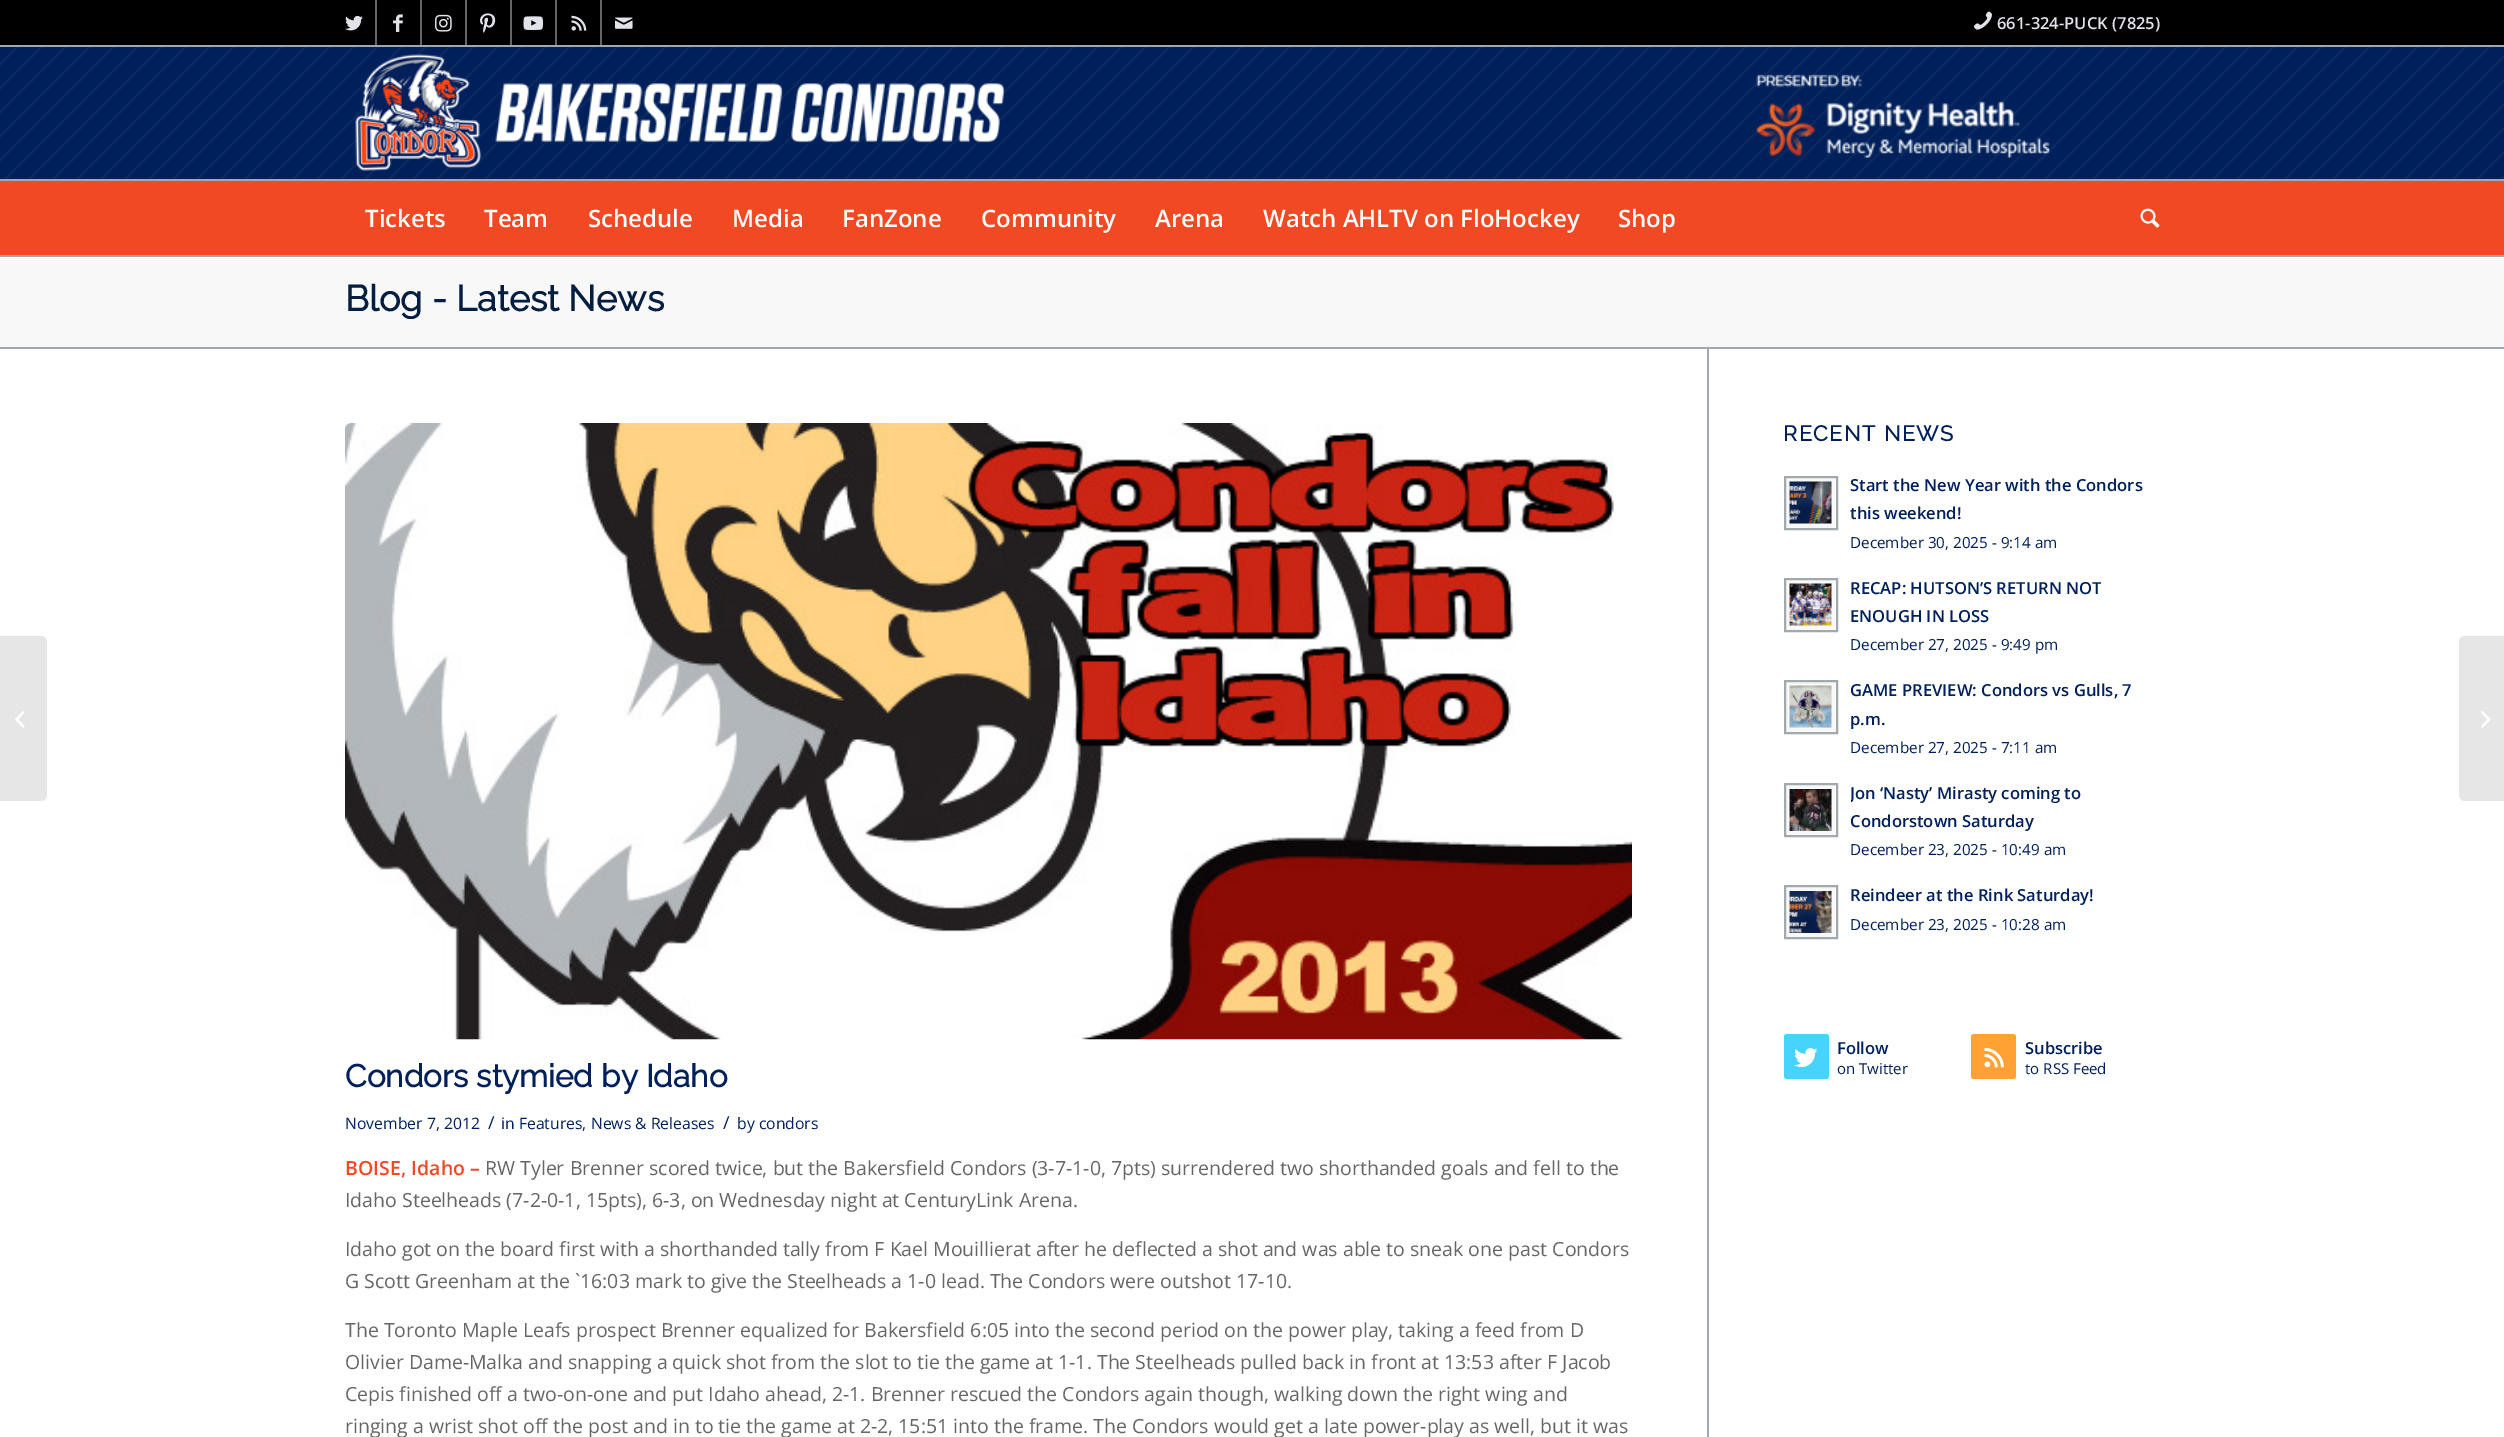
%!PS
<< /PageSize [2504 1437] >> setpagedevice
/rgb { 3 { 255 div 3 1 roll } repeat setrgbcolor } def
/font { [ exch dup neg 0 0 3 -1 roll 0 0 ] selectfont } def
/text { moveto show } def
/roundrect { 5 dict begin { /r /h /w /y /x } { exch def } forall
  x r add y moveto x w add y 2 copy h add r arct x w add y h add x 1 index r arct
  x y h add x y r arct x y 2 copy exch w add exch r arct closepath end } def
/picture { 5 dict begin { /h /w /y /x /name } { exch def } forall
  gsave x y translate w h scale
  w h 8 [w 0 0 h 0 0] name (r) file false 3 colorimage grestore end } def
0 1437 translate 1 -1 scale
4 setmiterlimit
248 248 248 rgb
0 0 2504 1437 rectfill
0 0 0 rgb
0 0 2504 45 rectfill
162 169 173 rgb
0 45 2504 2 rectfill
102 102 102 rgb
375 0 2 45 rectfill
(img_01.rgb) 345 15 18 16 picture
420 0 2 45 rectfill
(img_02.rgb) 393 14 10 18 picture
465 0 2 45 rectfill
(img_03.rgb) 435 14 17 18 picture
510 0 2 45 rectfill
(img_04.rgb) 480 13 16 20 picture
555 0 2 45 rectfill
(img_05.rgb) 523 16 20 15 picture
600 0 2 45 rectfill
(img_06.rgb) 571 15 16 16 picture
(img_07.rgb) 615 17 18 12 picture
(img_08.rgb) 1974 11 18 19 picture
0 32 91 rgb
0 47 2504 132 rectfill
(img_09.rgb) 0 47 2504 132 picture
162 169 173 rgb
0 255 2504 2 rectfill
(img_10.rgb) 355 54 650 117 picture
(img_11.rgb) 1756 74 294 84 picture
240 73 36 rgb
0 181 2504 74 rectfill
162 169 173 rgb
0 179 2504 2 rectfill
(img_12.rgb) 2140 208 20 20 picture
255 255 255 rgb
0 349 2504 1088 rectfill
230 230 230 rgb
0 636 moveto 41 0 rlineto 3.5 0 6 2.5 6 6 rcurveto 0 153 rlineto 0 3.5 -2.5 6 -6 6 rcurveto -41 0 rlineto closepath fill
(img_13.rgb) 15 711 10 17 picture
162 169 173 rgb
0 347 2504 2 rectfill
248 248 248 rgb
1785 477 moveto 52 0 rlineto 0 52 rlineto -52 0 rlineto closepath gsave fill grestore
162 169 173 rgb
2 setlinewidth
stroke
(img_14.rgb) 1789 481 43 43 picture
248 248 248 rgb
1785 579 moveto 52 0 rlineto 0 52 rlineto -52 0 rlineto closepath gsave fill grestore
162 169 173 rgb
stroke
(img_15.rgb) 1789 583 43 43 picture
248 248 248 rgb
1785 681 moveto 52 0 rlineto 0 52 rlineto -52 0 rlineto closepath gsave fill grestore
162 169 173 rgb
stroke
(img_16.rgb) 1789 685 43 43 picture
248 248 248 rgb
1785 784 moveto 52 0 rlineto 0 52 rlineto -52 0 rlineto closepath gsave fill grestore
162 169 173 rgb
stroke
(img_17.rgb) 1789 789 43 42 picture
248 248 248 rgb
1785 886 moveto 52 0 rlineto 0 52 rlineto -52 0 rlineto closepath gsave fill grestore
162 169 173 rgb
stroke
(img_18.rgb) 1789 891 43 42 picture
70 212 254 rgb
1784 1034 45 45 3 roundrect fill
(img_19.rgb) 1794 1048 24 20 picture
255 161 51 rgb
1971 1034 45 45 3 roundrect fill
(img_20.rgb) 1984 1047 20 21 picture
162 169 173 rgb
1707 348 2 1089 rectfill
(img_21.rgb) 345 423 1287 617 picture
230 230 230 rgb
2465 636 moveto 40 0 rlineto 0 165 rlineto -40 0 rlineto -3.5 0 -6 -2.5 -6 -6 rcurveto 0 -153 rlineto 0 -3.5 2.5 -6 6 -6 rcurveto closepath fill
(img_22.rgb) 2481 711 10 17 picture
/OpenSans-SemiBold 16.5 font
226 226 235 rgb
(661-324-PUCK \(7825\)) 1997 29 text
/OpenSans-SemiBold 24 font
255 255 255 rgb
(Tickets) 365 227 text
(Team) 484 227 text
(Schedule) 588 227 text
(Media) 732 227 text
(FanZone) 842 227 text
(Community) 981 227 text
(Arena) 1155 227 text
(Watch AHLTV on FloHockey) 1263 227 text
(Shop) 1618 227 text
/Raleway-Bold 36 font
4 30 65 rgb
(Blog - Latest News) 345 311 text
/Raleway-Bold 21.5 font
0 32 91 rgb
1783 441 moveto 1.5 0 (RECENT NEWS) ashow
/OpenSans-SemiBold 16.6 font
(Start the New Year with the Condors) 1850 491 text
(this weekend!) 1850 519 text
/OpenSans-Regular 15.25 font
(December 30, 2025 - 9:14 am) 1850 548 text
/OpenSans-SemiBold 16.6 font
(RECAP: HUTSON’S RETURN NOT) 1850 594 text
(ENOUGH IN LOSS) 1850 622 text
/OpenSans-Regular 15.25 font
(December 27, 2025 - 9:49 pm) 1850 650 text
/OpenSans-SemiBold 16.6 font
(GAME PREVIEW: Condors vs Gulls, 7) 1850 696 text
(p.m.) 1850 725 text
/OpenSans-Regular 15.25 font
(December 27, 2025 - 7:11 am) 1850 753 text
gsave
1851 780 309 84 rectclip
/OpenSans-SemiBold 16.6 font
(Jon ‘Nasty’ Mirasty coming to) 1850 799 text
grestore
/OpenSans-SemiBold 16.6 font
(Condorstown Saturday) 1850 827 text
/OpenSans-Regular 15.25 font
(December 23, 2025 - 10:49 am) 1850 855 text
/OpenSans-SemiBold 16.6 font
(Reindeer at the Rink Saturday!) 1850 901 text
/OpenSans-Regular 15.25 font
(December 23, 2025 - 10:28 am) 1850 930 text
/OpenSans-SemiBold 16.5 font
(Follow) 1837 1054 text
/OpenSans-Regular 15 font
(on Twitter) 1837 1074 text
/OpenSans-SemiBold 16.5 font
(Subscribe) 2025 1054 text
/OpenSans-Regular 15 font
(to RSS Feed) 2025 1074 text
/Raleway-Bold 31.5 font
(Condors stymied by Idaho) 345 1087 text
/OpenSans-Regular 15.75 font
(November 7, 2012) 345 1129 text
/OpenSans-Regular 18 font
(/) 488 1129 text
/OpenSans-Regular 15.75 font
(in Features, News & Releases) 501 1129 text
/OpenSans-Regular 18 font
(/) 723 1129 text
/OpenSans-Regular 15.75 font
(by condors) 737 1129 text
/OpenSans-SemiBold 19.5 font
240 73 36 rgb
(BOISE, Idaho –) 345 1175 text
/OpenSans-Regular 19.5 font
102 102 102 rgb
(RW Tyler Brenner scored twice, but the Bakersfield Condors \(3-7-1-0, 7pts\) surrendered two shorthanded goals and fell to the) 485 1175 text
(Idaho Steelheads \(7-2-0-1, 15pts\), 6-3, on Wednesday night at CenturyLink Arena.) 345 1207 text
(Idaho got on the board first with a shorthanded tally from F Kael Mouillierat after he deflected a shot and was able to sneak one past Condors) 345 1256 text
(G Scott Greenham at the `16:03 mark to give the Steelheads a 1-0 lead. The Condors were outshot 17-10.) 345 1288 text
(The Toronto Maple Leafs prospect Brenner equalized for Bakersfield 6:05 into the second period on the power play, taking a feed from D) 345 1337 text
(Olivier Dame-Malka and snapping a quick shot from the slot to tie the game at 1-1. The Steelheads pulled back in front at 13:53 after F Jacob) 345 1369 text
(Cepis finished off a two-on-one and put Idaho ahead, 2-1. Brenner rescued the Condors again though, walking down the right wing and) 345 1401 text
(ringing a wrist shot off the post and in to tie the game at 2-2, 15:51 into the frame. The Condors would get a late power-play as well, but it was) 345 1433 text
showpage
